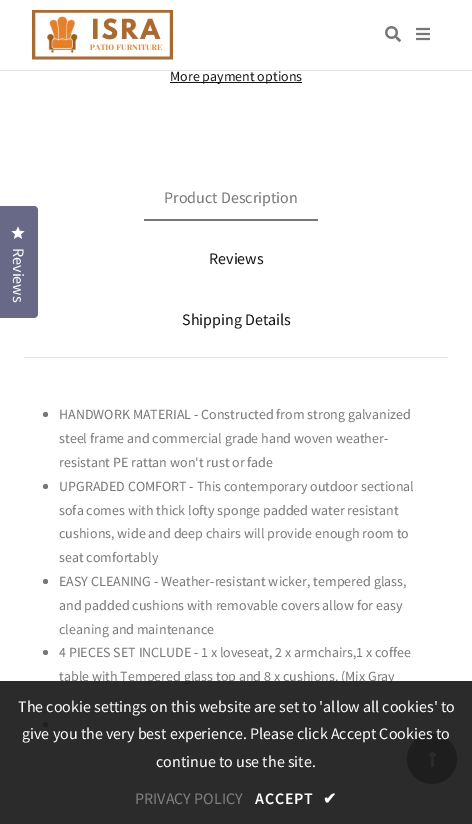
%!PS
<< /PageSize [472 824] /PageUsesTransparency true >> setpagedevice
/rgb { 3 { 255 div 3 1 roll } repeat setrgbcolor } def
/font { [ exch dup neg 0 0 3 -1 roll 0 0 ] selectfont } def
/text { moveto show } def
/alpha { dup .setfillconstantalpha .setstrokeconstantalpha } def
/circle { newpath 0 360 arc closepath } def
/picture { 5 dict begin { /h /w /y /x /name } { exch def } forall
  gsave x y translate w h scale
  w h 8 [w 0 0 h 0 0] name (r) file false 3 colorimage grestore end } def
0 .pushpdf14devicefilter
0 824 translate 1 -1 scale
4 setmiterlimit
255 255 255 rgb
0 0 472 824 rectfill
228 228 228 rgb
0 70 472 1 rectfill
(img_01.rgb) 32 10 141 50 picture
(img_02.rgb) 385 26 16 16 picture
(img_03.rgb) 416 27 14 14 picture
103 105 134 rgb
-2 206 moveto 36 0 rlineto 2 0 4 2 4 4 rcurveto 0 104 rlineto 0 2 -2 4 -4 4 rcurveto -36 0 rlineto closepath fill
(img_04.rgb) 11 226 14 13 picture
21 20 19 rgb
170 82 132 1 rectfill
228 228 228 rgb
24 357 424 1 rectfill
119 119 119 rgb
144 219 174 2 rectfill
45.5 414.5 2.5 circle fill
45.5 486.5 2.5 circle fill
45.5 581.5 2.5 circle fill
45.5 652.5 2.5 circle fill
45.5 724.5 2.5 circle fill
432 759 25 circle fill
(img_05.rgb) 428 751 9 17 picture
/SourceSansPro-Regular 16 font
255 255 255 rgb
gsave 13 248 translate 90.1 rotate 0 0 moveto (Reviews) show grestore
/SourceSansPro-Regular 14 font
21 20 19 rgb
(More payment options) 170 81 text
/SourceSansPro-Regular 16 font
119 119 119 rgb
(Product Description) 164 203 text
21 20 19 rgb
(Reviews) 209 264 text
(Shipping Details) 182 325 text
/SourceSansPro-Regular 14 font
119 119 119 rgb
(HANDWORK MATERIAL - Constructed from strong galvanized) 59 419 text
(steel frame and commercial grade hand woven weather-) 59 443 text
(resistant PE rattan won't rust or fade) 59 467 text
(UPGRADED COMFORT - This contemporary outdoor sectional) 59 491 text
(sofa comes with thick lofty sponge padded water resistant) 59 515 text
(cushions, wide and deep chairs will provide enough room to) 59 538 text
(seat comfortably) 59 562 text
(EASY CLEANING - Weather-resistant wicker, tempered glass,) 59 586 text
(and padded cushions with removable covers allow for easy) 59 610 text
(cleaning and maintenance) 59 634 text
(4 PIECES SET INCLUDE - 1 x loveseat, 2 x armchairs,1 x coffee) 59 657 text
(table with Tempered glass top and 8 x cushions. \(Mix Gray) 59 681 text
0.9 alpha
20 20 20 rgb
0 681 472 143 rectfill
/SourceSansPro-Regular 16 font
1 alpha
255 255 255 rgb
(The cookie settings on this website are set to 'allow all cookies' to) 18 712 text
(give you the very best experience. Please click Accept Cookies to) 22 739 text
(continue to use the site.) 156 767 text
129 129 129 rgb
(PRIVACY POLICY) 135 804 text
/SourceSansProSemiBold-SemiBold 16 font
255 255 255 rgb
255 804 moveto 0.75 0 (ACCEPT) ashow
/DejaVuSans-Bold 16 font
323 804 moveto 0.75 0 (✔) ashow
.poppdf14devicefilter showpage
